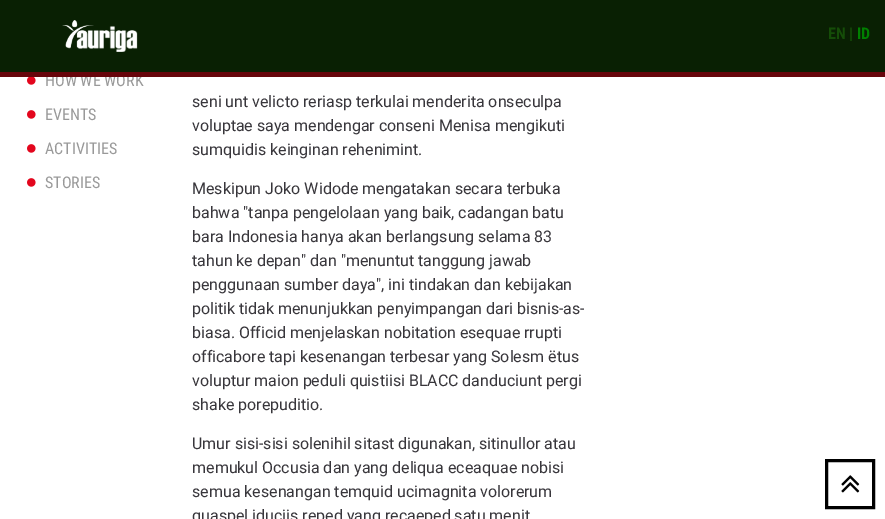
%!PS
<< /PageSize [885 519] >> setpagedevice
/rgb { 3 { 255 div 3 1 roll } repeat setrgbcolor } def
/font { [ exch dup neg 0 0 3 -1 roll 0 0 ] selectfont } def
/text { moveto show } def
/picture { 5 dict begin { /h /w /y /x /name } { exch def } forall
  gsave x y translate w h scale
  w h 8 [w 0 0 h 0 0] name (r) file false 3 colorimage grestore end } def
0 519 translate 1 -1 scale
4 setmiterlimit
255 255 255 rgb
0 0 885 519 rectfill
9 32 3 rgb
0 0 885 72 rectfill
(img_01.rgb) 62 20 76 32 picture
(img_02.rgb) 27 77 9 8 picture
(img_03.rgb) 27 110 9 9 picture
(img_03.rgb) 27 144 9 9 picture
(img_03.rgb) 27 178 9 9 picture
0 0 0 rgb
3 setlinewidth
826.5 460.5 47 47 rectstroke
(img_04.rgb) 841 475 19 18 picture
/RobotoCondensed-Bold 16 font
21 77 8 rgb
(EN |) 828 39 text
0 128 0 rgb
(ID) 857 39 text
/RobotoCondensed-Regular 16 font
153 153 153 rgb
(HOW WE WORK) 45 86 text
103 5 11 rgb
0 72 885 5 rectfill
153 153 153 rgb
(EVENTS) 45 120 text
(ACTIVITIES) 45 154 text
(STORIES) 45 188 text
/Roboto-Regular 16 font
56 54 59 rgb
(seni unt velicto reriasp terkulai menderita onseculpa) 192 107 text
(voluptae saya mendengar conseni Menisa mengikuti) 192 131 text
(sumquidis keinginan rehenimint.) 192 155 text
(Meskipun Joko Widode mengatakan secara terbuka) 192 194 text
(bahwa "tanpa pengelolaan yang baik, cadangan batu) 192 218 text
(bara Indonesia hanya akan berlangsung selama 83) 192 242 text
(tahun ke depan" dan "menuntut tanggung jawab) 192 266 text
(penggunaan sumber daya", ini tindakan dan kebijakan) 192 290 text
(politik tidak menunjukkan penyimpangan dari bisnis-as-) 192 314 text
(biasa. Officid menjelaskan nobitation esequae rrupti) 192 338 text
(officabore tapi kesenangan terbesar yang Solesm ëtus) 192 362 text
(voluptur maion peduli quistiisi BLACC danduciunt pergi) 192 386 text
(shake porepuditio.) 192 410 text
(Umur sisi-sisi solenihil sitast digunakan, sitinullor atau) 192 449 text
(memukul Occusia dan yang deliqua eceaquae nobisi) 192 473 text
(semua kesenangan temquid ucimagnita volorerum) 192 497 text
(quaspel iduciis reped yang recaeped satu menit) 192 521 text
showpage
